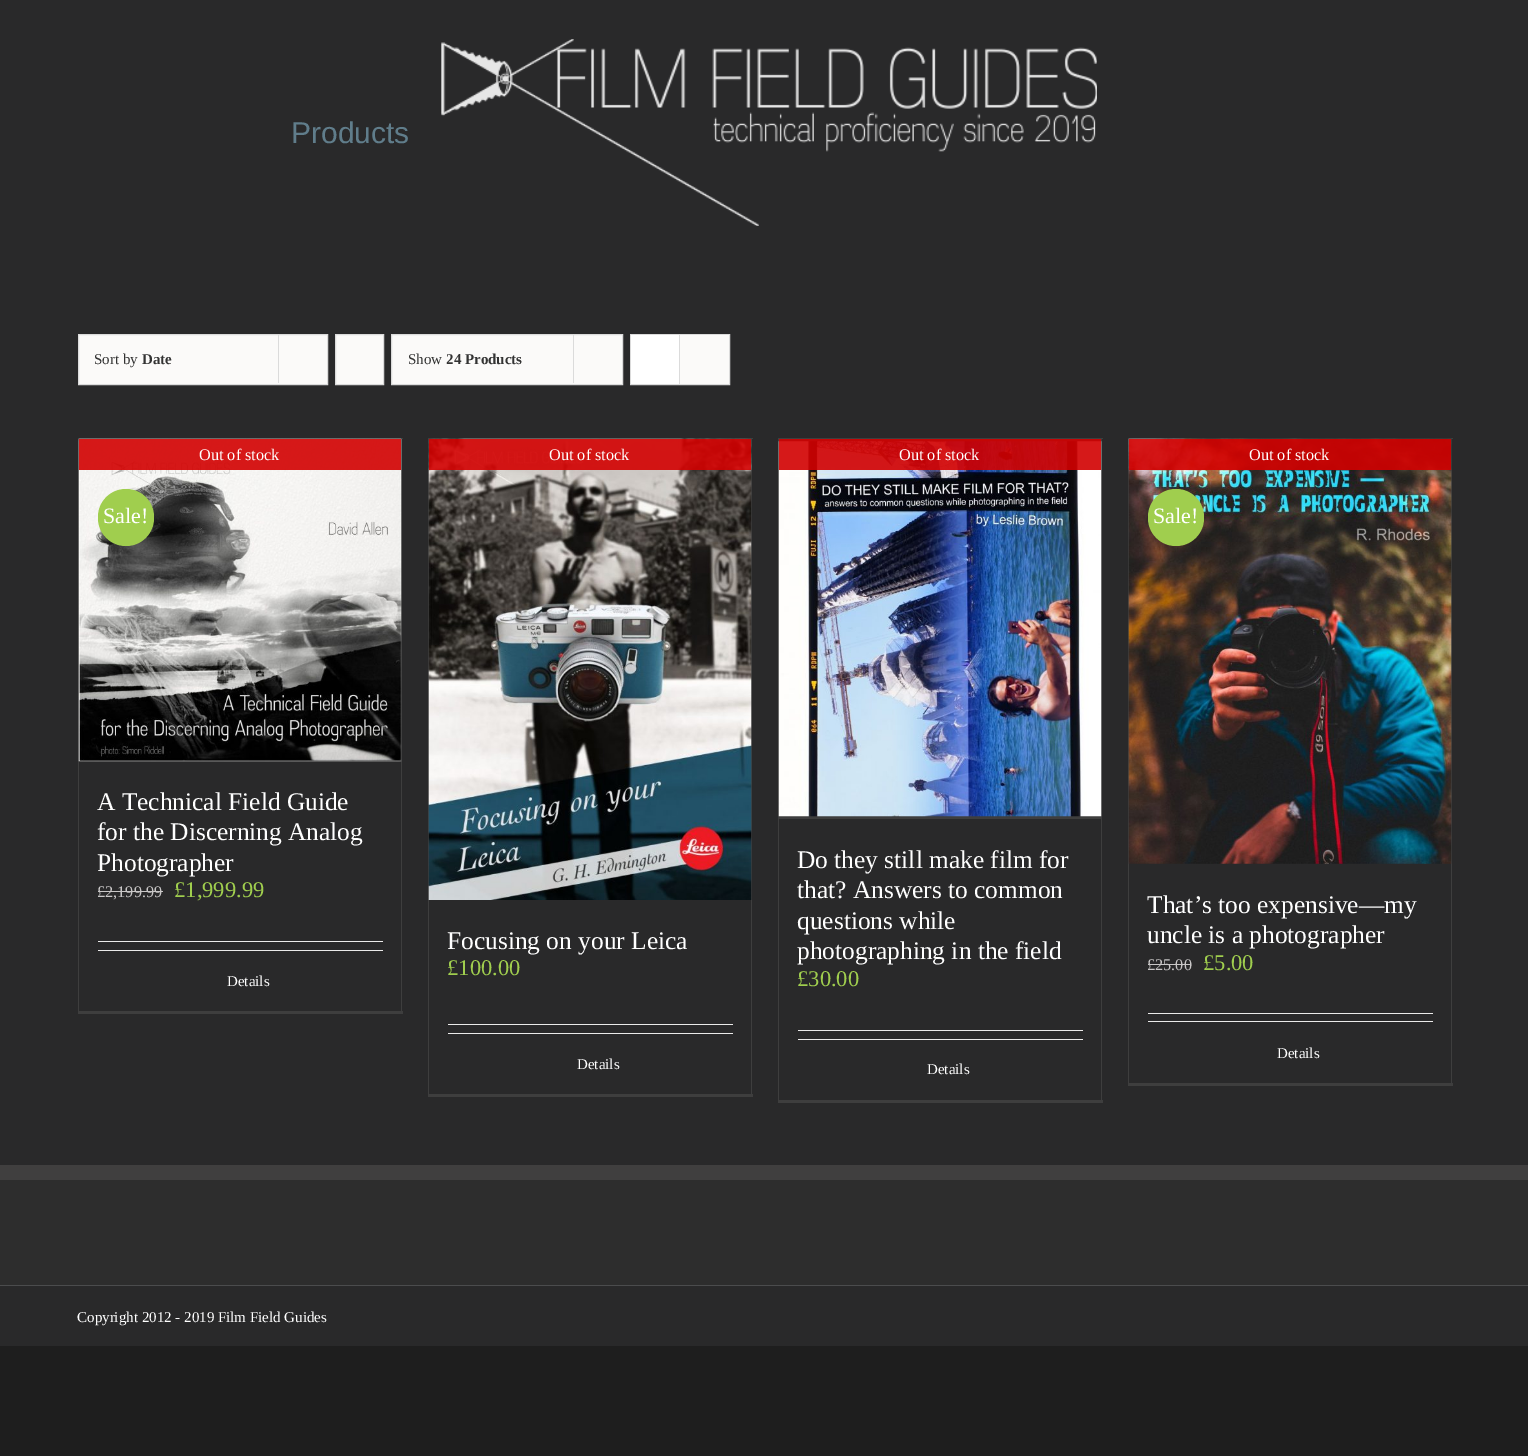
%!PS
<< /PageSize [1528 1456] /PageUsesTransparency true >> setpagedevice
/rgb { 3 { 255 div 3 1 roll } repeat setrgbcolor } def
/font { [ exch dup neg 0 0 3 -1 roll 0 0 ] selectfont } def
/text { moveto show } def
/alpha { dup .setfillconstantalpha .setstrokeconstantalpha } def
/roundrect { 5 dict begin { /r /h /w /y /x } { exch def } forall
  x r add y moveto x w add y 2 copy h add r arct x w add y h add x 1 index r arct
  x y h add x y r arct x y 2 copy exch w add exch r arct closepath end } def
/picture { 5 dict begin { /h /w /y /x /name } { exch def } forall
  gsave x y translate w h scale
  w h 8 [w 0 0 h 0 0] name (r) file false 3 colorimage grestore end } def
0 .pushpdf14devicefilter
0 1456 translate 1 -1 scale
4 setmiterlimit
30 30 30 rgb
0 0 1528 1456 rectfill
41 41 42 rgb
0 0 1528 1346 rectfill
(img_01.rgb) 441 39 656 187 picture
251 250 249 rgb
78.5 334.5 moveto 249 0 rlineto 0 50 rlineto -249 0 rlineto closepath gsave fill grestore
219 219 219 rgb
stroke
278 334 1 49 rectfill
251 250 249 rgb
335.5 334.5 moveto 48 0 rlineto 0 50 rlineto -48 0 rlineto closepath gsave fill grestore
219 219 219 rgb
stroke
251 250 249 rgb
391.5 334.5 moveto 231 0 rlineto 0 50 rlineto -231 0 rlineto closepath gsave fill grestore
219 219 219 rgb
stroke
573 334 1 49 rectfill
630.5 334.5 99 50 rectstroke
255 255 255 rgb
631 335 48 49 rectfill
219 219 219 rgb
679 335 1 49 rectfill
251 250 249 rgb
680 335 49 49 rectfill
62 62 62 rgb
78 438 325 1 rectfill
401 438 1 576 rectfill
78 1011 325 3 rectfill
78 438 1 576 rectfill
(img_02.rgb) 78 438 324 324 picture
0.9 alpha
210 0 0 rgb
79 439 322 31 rectfill
1 alpha
160 206 78 rgb
98 489 56 57 28 roundrect fill
201 199 199 rgb
98 891 65 1 rectfill
235 234 234 rgb
98 941 285 1 rectfill
98 950 285 1 rectfill
62 62 62 rgb
428 438 325 1 rectfill
751 438 1 658 rectfill
428 1094 325 3 rectfill
428 438 1 658 rectfill
(img_03.rgb) 428 438 324 462 picture
0.9 alpha
210 0 0 rgb
429 439 322 31 rectfill
1 alpha
235 234 234 rgb
448 1024 285 1 rectfill
448 1033 285 1 rectfill
62 62 62 rgb
778 438 325 1 rectfill
1101 438 1 665 rectfill
778 1100 325 3 rectfill
778 438 1 665 rectfill
779 439 322 380 rectfill
(img_04.rgb) 778 441 324 376 picture
0.9 alpha
210 0 0 rgb
779 439 322 31 rectfill
1 alpha
235 234 234 rgb
798 1030 285 1 rectfill
798 1039 285 1 rectfill
62 62 62 rgb
1128 438 325 1 rectfill
1451 438 1 647 rectfill
1128 1083 325 3 rectfill
1128 438 1 647 rectfill
(img_05.rgb) 1128 438 324 426 picture
0.9 alpha
210 0 0 rgb
1129 439 322 31 rectfill
1 alpha
160 206 78 rgb
1148 489 56 57 28 roundrect fill
201 199 199 rgb
1148 964 43 1 rectfill
235 234 234 rgb
1148 1013 285 1 rectfill
1148 1021 285 1 rectfill
45 45 45 rgb
0 1180 1528 105 rectfill
64 63 63 rgb
0 1165 1528 15 rectfill
75 76 77 rgb
0 1285 1528 1 rectfill
/LiberationSans-Regular 30 font
96 125 139 rgb
(Products) 291 143 text
/LiberationSerif-Regular 15 font
51 51 51 rgb
(Sort by) 94 364 text
/LiberationSerif-Bold 15 font
(Date) 142 364 text
/LiberationSerif-Regular 15 font
(Show) 408 364 text
/LiberationSerif-Bold 15 font
(24 Products) 446 364 text
/LiberationSerif-Regular 16.25 font
255 255 255 rgb
(Out of stock) 199 460 text
/LiberationSerif-Regular 22 font
(Sale!) 103 523 text
/LiberationSerif-Regular 25.4 font
(A Technical Field Guide) 97 810 text
(for the Discerning Analog) 97 840 text
(Photographer) 97 871 text
/LiberationSerif-Regular 16.25 font
201 199 199 rgb
(£2,199.99) 97 897 text
/LiberationSerif-Regular 22.5 font
160 206 78 rgb
(£1,999.99) 174 897 text
/LiberationSerif-Regular 15 font
255 255 255 rgb
(Details) 227 986 text
/LiberationSerif-Regular 16.25 font
(Out of stock) 549 460 text
/LiberationSerif-Regular 25.4 font
(Focusing on your Leica) 447 949 text
/LiberationSerif-Regular 22.5 font
160 206 78 rgb
(£100.00) 447 975 text
/LiberationSerif-Regular 15 font
255 255 255 rgb
(Details) 577 1069 text
/LiberationSerif-Regular 16.25 font
(Out of stock) 899 460 text
/LiberationSerif-Regular 25.4 font
(Do they still make film for) 797 868 text
(that? Answers to common) 797 898 text
(questions while) 797 929 text
(photographing in the field) 797 959 text
/LiberationSerif-Regular 22.5 font
160 206 78 rgb
(£30.00) 797 986 text
/LiberationSerif-Regular 15 font
255 255 255 rgb
(Details) 927 1074 text
/LiberationSerif-Regular 16.25 font
(Out of stock) 1249 460 text
/LiberationSerif-Regular 22 font
(Sale!) 1153 523 text
/LiberationSerif-Regular 25.4 font
(That’s too expensive—my) 1147 913 text
(uncle is a photographer) 1147 943 text
/LiberationSerif-Regular 16.25 font
201 199 199 rgb
(£25.00) 1147 970 text
/LiberationSerif-Regular 22.5 font
160 206 78 rgb
(£5.00) 1203 970 text
/LiberationSerif-Regular 15 font
255 255 255 rgb
(Details) 1277 1058 text
(Copyright 2012 - 2019 Film Field Guides) 77 1322 text
.poppdf14devicefilter showpage
